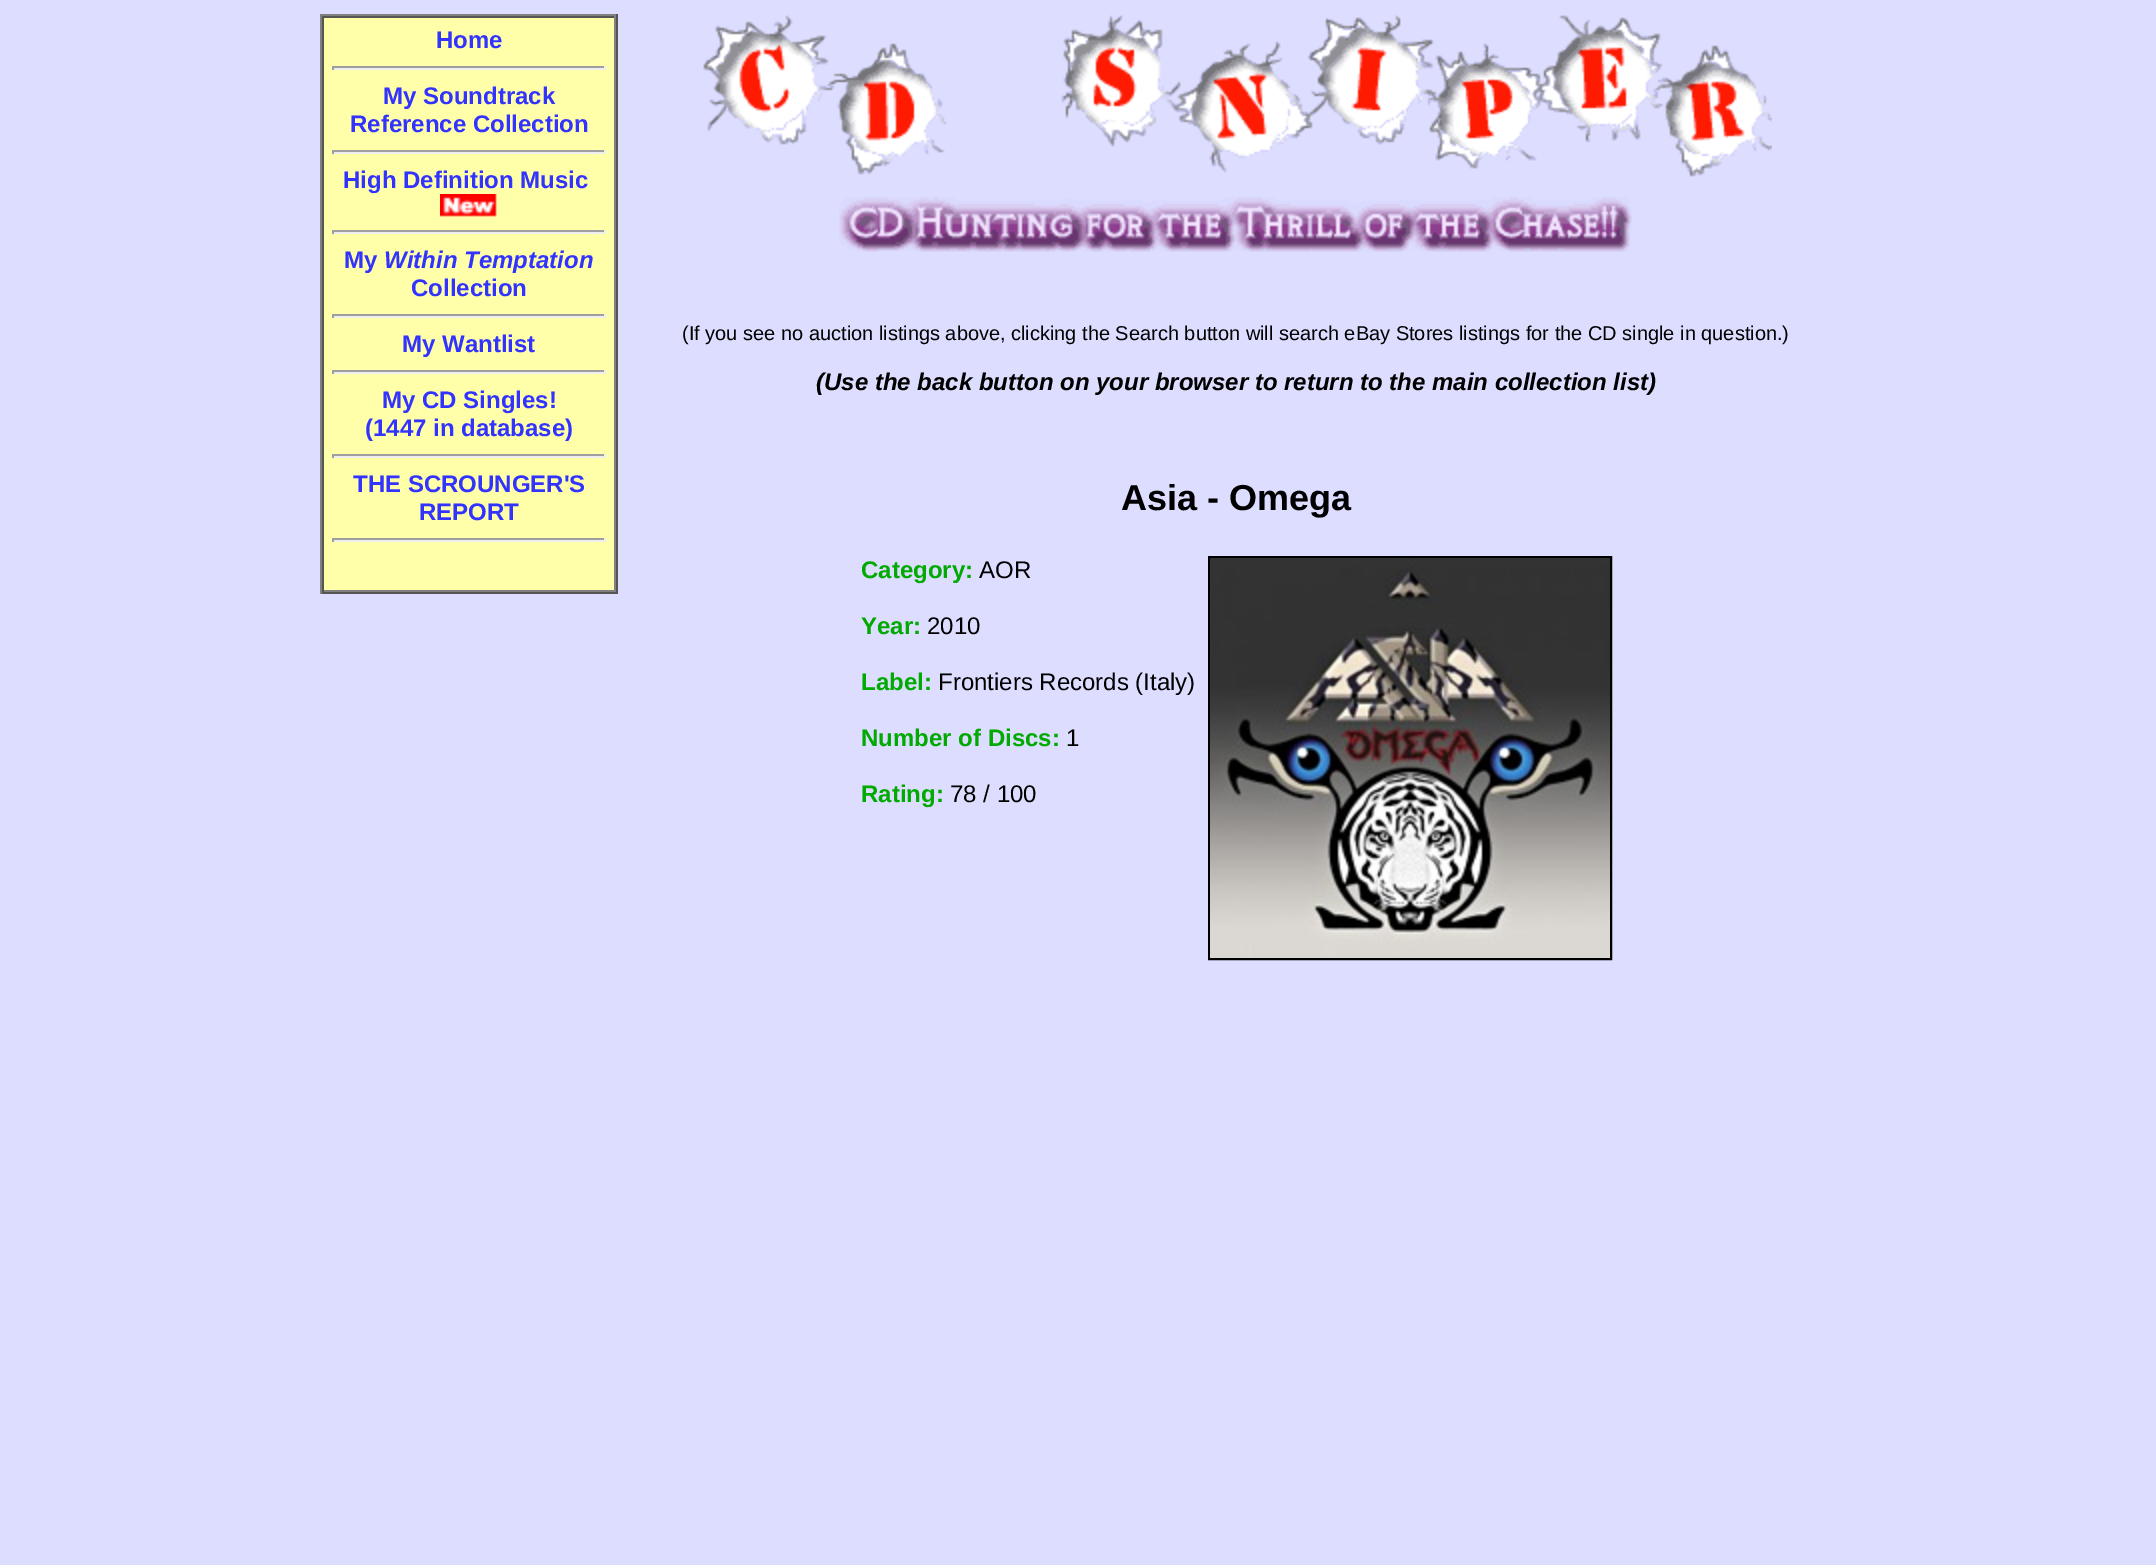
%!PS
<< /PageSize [2156 1565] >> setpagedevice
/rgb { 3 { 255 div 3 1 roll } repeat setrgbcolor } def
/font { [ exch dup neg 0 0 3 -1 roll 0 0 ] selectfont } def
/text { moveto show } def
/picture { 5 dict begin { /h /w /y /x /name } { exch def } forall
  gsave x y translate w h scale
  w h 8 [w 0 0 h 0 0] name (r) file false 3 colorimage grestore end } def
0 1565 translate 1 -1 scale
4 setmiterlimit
221 221 255 rgb
0 0 2156 1565 rectfill
128 128 128 rgb
320 14 298 2 rectfill
85 85 85 rgb
616 14 2 580 rectfill
320 592 298 2 rectfill
128 128 128 rgb
320 14 2 580 rectfill
255 255 170 rgb
324 18 290 572 rectfill
85 85 85 rgb
322 16 294 2 rectfill
128 128 128 rgb
614 16 2 576 rectfill
322 590 294 2 rectfill
85 85 85 rgb
322 16 2 576 rectfill
159 159 159 rgb
332 66 274 2 rectfill
238 238 238 rgb
604 66 2 4 rectfill
332 68 274 2 rectfill
159 159 159 rgb
332 66 2 4 rectfill
332 150 274 2 rectfill
238 238 238 rgb
604 150 2 4 rectfill
332 152 274 2 rectfill
159 159 159 rgb
332 150 2 4 rectfill
(img_01.rgb) 440 194 57 23 picture
332 230 274 2 rectfill
238 238 238 rgb
604 230 2 4 rectfill
332 232 274 2 rectfill
159 159 159 rgb
332 230 2 4 rectfill
332 314 274 2 rectfill
238 238 238 rgb
604 314 2 4 rectfill
332 316 274 2 rectfill
159 159 159 rgb
332 314 2 4 rectfill
332 370 274 2 rectfill
238 238 238 rgb
604 370 2 4 rectfill
332 372 274 2 rectfill
159 159 159 rgb
332 370 2 4 rectfill
332 454 274 2 rectfill
238 238 238 rgb
604 454 2 4 rectfill
332 456 274 2 rectfill
159 159 159 rgb
332 454 2 4 rectfill
332 538 274 2 rectfill
238 238 238 rgb
604 538 2 4 rectfill
332 540 274 2 rectfill
159 159 159 rgb
332 538 2 4 rectfill
(img_02.rgb) 703 15 1069 162 picture
(img_03.rgb) 839 197 793 55 picture
0 0 0 rgb
2 setlinewidth
1209 557 402 402 rectstroke
(img_04.rgb) 1210 558 400 400 picture
/LiberationSans-Bold 24 font
51 51 255 rgb
(Home) 436 48 text
(My Soundtrack) 383 104 text
(Reference Collection) 350 132 text
(High Definition Music) 343 188 text
(My) 344 268 text
/LiberationSans-BoldItalic 24 font
(Within Temptation) 384 268 text
/LiberationSans-Bold 24 font
(Collection) 411 296 text
(My Wantlist) 402 352 text
(My CD Singles!) 382 408 text
(\(1447 in database\)) 365 436 text
(THE SCROUNGER'S) 353 492 text
(REPORT) 419 520 text
/LiberationSans-Regular 20 font
0 0 0 rgb
(\(If you see no auction listings above, clicking the Search button will search eBay Stores listings for the CD single in question.\)) 682 340 text
/LiberationSans-BoldItalic 24 font
(\(Use the back button on your browser to return to the main collection list\)) 816 390 text
/LiberationSans-Bold 36 font
(Asia - Omega) 1121 510 text
/LiberationSans-Bold 24 font
0 170 0 rgb
(Category:) 861 578 text
/LiberationSans-Regular 24 font
0 0 0 rgb
(AOR) 979 578 text
/LiberationSans-Bold 24 font
0 170 0 rgb
(Year:) 861 634 text
/LiberationSans-Regular 24 font
0 0 0 rgb
(2010) 927 634 text
/LiberationSans-Bold 24 font
0 170 0 rgb
(Label:) 861 690 text
/LiberationSans-Regular 24 font
0 0 0 rgb
(Frontiers Records \(Italy\)) 938 690 text
/LiberationSans-Bold 24 font
0 170 0 rgb
(Number of Discs:) 861 746 text
/LiberationSans-Regular 24 font
0 0 0 rgb
(1) 1066 746 text
/LiberationSans-Bold 24 font
0 170 0 rgb
(Rating:) 861 802 text
/LiberationSans-Regular 24 font
0 0 0 rgb
(78 / 100) 950 802 text
showpage
